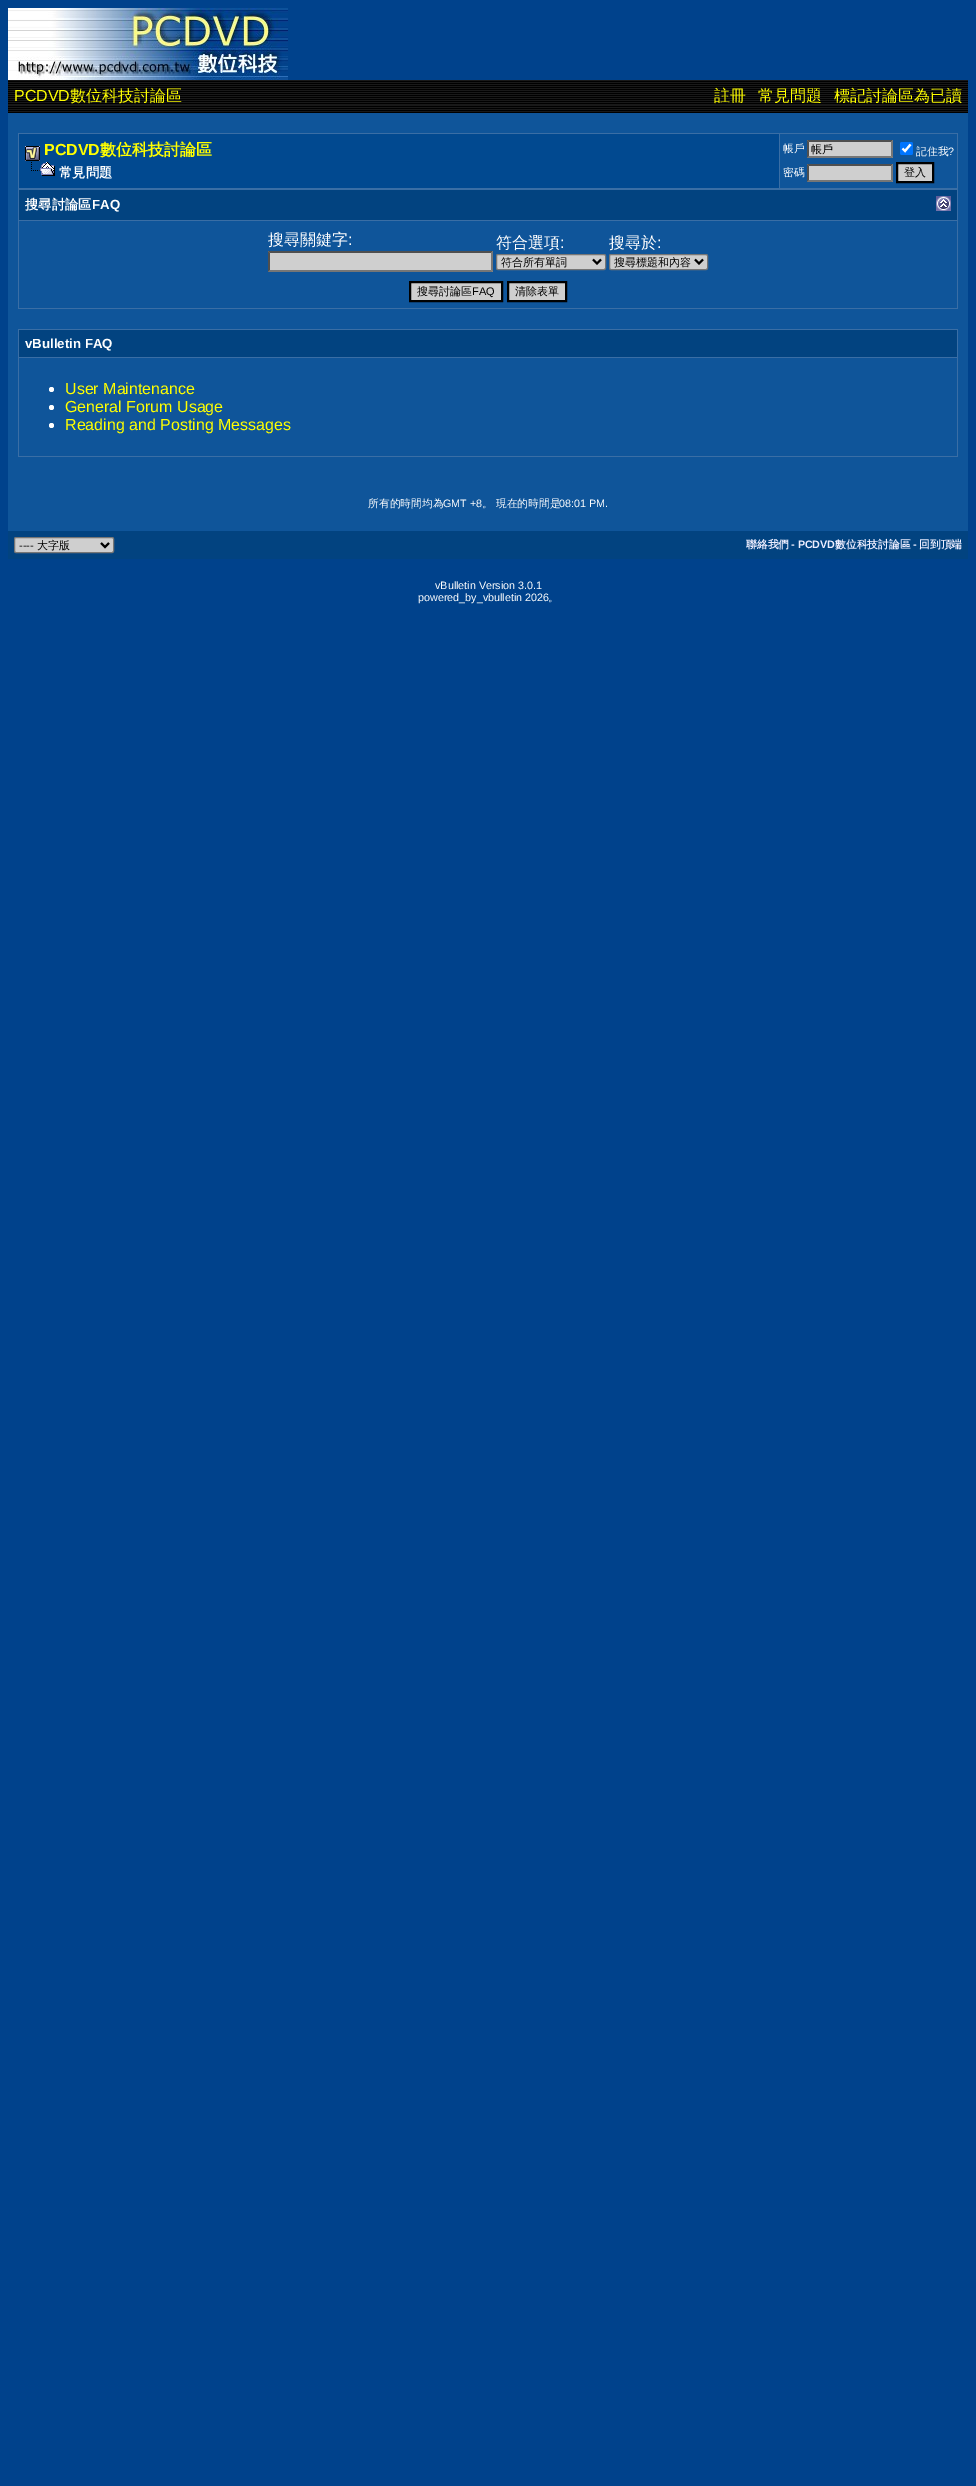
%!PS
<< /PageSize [976 2486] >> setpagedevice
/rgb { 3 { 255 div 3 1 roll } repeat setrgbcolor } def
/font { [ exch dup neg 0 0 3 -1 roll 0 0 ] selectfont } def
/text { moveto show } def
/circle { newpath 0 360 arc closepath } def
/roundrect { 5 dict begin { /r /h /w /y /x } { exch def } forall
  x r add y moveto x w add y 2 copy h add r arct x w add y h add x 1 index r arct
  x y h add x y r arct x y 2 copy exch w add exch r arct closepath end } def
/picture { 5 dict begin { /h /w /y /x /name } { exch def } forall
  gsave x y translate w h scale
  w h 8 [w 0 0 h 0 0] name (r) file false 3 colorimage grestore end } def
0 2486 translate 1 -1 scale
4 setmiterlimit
0 66 140 rgb
0 0 976 2486 rectfill
(img_01.rgb) 8 8 280 72 picture
(img_02.rgb) 8 80 960 33 picture
15 85 154 rgb
8 113 960 418 rectfill
58 110 165 rgb
18 133 940 176 rectfill
1 73 144 rgb
19 134 760 54 rectfill
(img_03.rgb) 25 146 15 15 picture
(img_04.rgb) 31 162 24 14 picture
15 85 154 rgb
780 134 177 54 rectfill
207 207 207 rgb
807 140 86 18 rectfill
79 79 79 rgb
807 140 moveto 86 0 rlineto -2 2 rlineto -82 0 rlineto closepath fill
118 118 118 rgb
893 140 moveto 0 18 rlineto -2 -2 rlineto 0 -14 rlineto closepath fill
893 158 moveto -86 0 rlineto 2 -2 rlineto 82 0 rlineto closepath fill
79 79 79 rgb
807 158 moveto 0 -18 rlineto 2 2 rlineto 0 14 rlineto closepath fill
0 117 255 rgb
900 142 13 13 2 roundrect fill
255 255 255 rgb
2.1 setlinewidth
902.5 148.5 moveto 2.5 2.5 rlineto 5.5 -6.5 rlineto stroke
207 207 207 rgb
807 164 86 18 rectfill
79 79 79 rgb
807 164 moveto 86 0 rlineto -2 2 rlineto -82 0 rlineto closepath fill
118 118 118 rgb
893 164 moveto 0 18 rlineto -2 -2 rlineto 0 -14 rlineto closepath fill
893 182 moveto -86 0 rlineto 2 -2 rlineto 82 0 rlineto closepath fill
79 79 79 rgb
807 182 moveto 0 -18 rlineto 2 2 rlineto 0 14 rlineto closepath fill
207 207 207 rgb
897 163 moveto 36 0 rlineto 0 19 rlineto -36 0 rlineto closepath gsave fill grestore
0 0 0 rgb
2 setlinewidth
stroke
2 67 128 rgb
19 190 938 30 rectfill
(img_05.rgb) 936 196 15 15 picture
15 85 154 rgb
19 221 938 87 rectfill
207 207 207 rgb
268 251 225 21 rectfill
79 79 79 rgb
268 251 moveto 225 0 rlineto -2 2 rlineto -221 0 rlineto closepath fill
118 118 118 rgb
493 251 moveto 0 21 rlineto -2 -2 rlineto 0 -17 rlineto closepath fill
493 272 moveto -225 0 rlineto 2 -2 rlineto 221 0 rlineto closepath fill
79 79 79 rgb
268 272 moveto 0 -21 rlineto 2 2 rlineto 0 17 rlineto closepath fill
207 207 207 rgb
496.5 254.5 109 15 1.5 roundrect gsave fill grestore
118 118 118 rgb
1 setlinewidth
stroke
0 0 0 rgb
2 setlinewidth
593 259.5 moveto 4 4 rlineto 4 -4 rlineto stroke
207 207 207 rgb
609.5 254.5 98 15 1.5 roundrect gsave fill grestore
118 118 118 rgb
1 setlinewidth
stroke
0 0 0 rgb
2 setlinewidth
695 259.5 moveto 4 4 rlineto 4 -4 rlineto stroke
207 207 207 rgb
410 282 moveto 92 0 rlineto 0 19 rlineto -92 0 rlineto closepath gsave fill grestore
0 0 0 rgb
stroke
207 207 207 rgb
508 282 moveto 58 0 rlineto 0 19 rlineto -58 0 rlineto closepath gsave fill grestore
0 0 0 rgb
stroke
58 110 165 rgb
18 329 940 128 rectfill
2 67 128 rgb
19 330 938 27 rectfill
15 85 154 rgb
19 358 938 98 rectfill
255 255 255 rgb
51.5 389.5 2.5 circle fill
51.5 407.5 2.5 circle fill
51.5 425.5 2.5 circle fill
2 67 128 rgb
8 531 960 28 rectfill
207 207 207 rgb
14.5 537.5 99 15 1.5 roundrect gsave fill grestore
118 118 118 rgb
1 setlinewidth
stroke
0 0 0 rgb
2 setlinewidth
101 543 moveto 4 4 rlineto 4 -4 rlineto stroke
/LiberationSans-Regular 16 font
255 255 0 rgb
(PCDVD) 14 101 text
/WenQuanYiZenHei-Medium 16 font
(數位科技討論區) 70 101 text
(註冊) 714 101 text
(常見問題) 758 101 text
(標記討論區為已讀) 834 101 text
/LiberationSans-Bold 16 font
(PCDVD) 44 155 text
/WenQuanYiZenHei-Bold 16 font
(數位科技討論區) 100 155 text
/WenQuanYiZenHei-Bold 13.25 font
255 255 255 rgb
(常見問題) 59 177 text
/WenQuanYiZenHei-Medium 10.75 font
(帳戶) 783 152 text
/WenQuanYiZenHei-Medium 11 font
0 0 0 rgb
(帳戶) 811 153 text
/WenQuanYiZenHei-Medium 10.75 font
255 255 255 rgb
(記住我) 916 155 text
/LiberationSans-Regular 10.75 font
(?) 948 155 text
/WenQuanYiZenHei-Medium 10.75 font
(密碼) 783 176 text
/WenQuanYiZenHei-Medium 11 font
0 0 0 rgb
(登入) 904 176 text
/WenQuanYiZenHei-Bold 13.25 font
255 255 255 rgb
(搜尋討論區) 25 209 text
/LiberationSans-Bold 13.25 font
(FAQ) 92 209 text
/WenQuanYiZenHei-Medium 16 font
(搜尋關鍵字) 268 245 text
/LiberationSans-Regular 16 font
(:) 348 245 text
/WenQuanYiZenHei-Medium 16 font
(符合選項) 496 248 text
/LiberationSans-Regular 16 font
(:) 560 248 text
/WenQuanYiZenHei-Medium 11 font
0 0 0 rgb
(符合所有單詞) 501 266 text
/WenQuanYiZenHei-Medium 16 font
255 255 255 rgb
(搜尋於) 609 248 text
/LiberationSans-Regular 16 font
(:) 657 248 text
/WenQuanYiZenHei-Medium 11 font
0 0 0 rgb
(搜尋標題和內容) 614 266 text
(搜尋討論區) 417 295 text
/LiberationSans-Regular 11 font
(FAQ) 472 295 text
/WenQuanYiZenHei-Medium 11 font
(清除表單) 515 295 text
/LiberationSans-Bold 13.25 font
255 255 255 rgb
(vBulletin FAQ) 25 348 text
/LiberationSans-Regular 16 font
255 255 0 rgb
(User Maintenance) 65 394 text
(General Forum Usage) 65 412 text
(Reading and Posting Messages) 65 430 text
/WenQuanYiZenHei-Medium 10.75 font
255 255 255 rgb
(所有的時間均為) 368 507 text
/LiberationSans-Regular 10.75 font
(GMT +8) 443 507 text
/WenQuanYiZenHei-Medium 10.75 font
(。 現在的時間是) 482 507 text
/LiberationSans-Regular 10.75 font
(08:01 PM.) 559 507 text
/LiberationSans-Regular 11 font
0 0 0 rgb
(----) 19 549 text
/WenQuanYiZenHei-Medium 11 font
(大字版) 37 549 text
/WenQuanYiZenHei-Bold 10.75 font
238 238 255 rgb
(聯絡我們) 746 548 text
/LiberationSans-Bold 10.75 font
(- PCDVD) 791 548 text
/WenQuanYiZenHei-Bold 10.75 font
(數位科技討論區) 835 548 text
/LiberationSans-Bold 10.75 font
(-) 913 548 text
/WenQuanYiZenHei-Bold 10.75 font
(回到頂端) 919 548 text
/LiberationSans-Regular 10.75 font
255 255 255 rgb
(vBulletin Version 3.0.1) 435 589 text
(powered_by_vbulletin 2026) 418 601 text
/WenQuanYiZenHei-Medium 10.75 font
(。) 548 601 text
showpage
